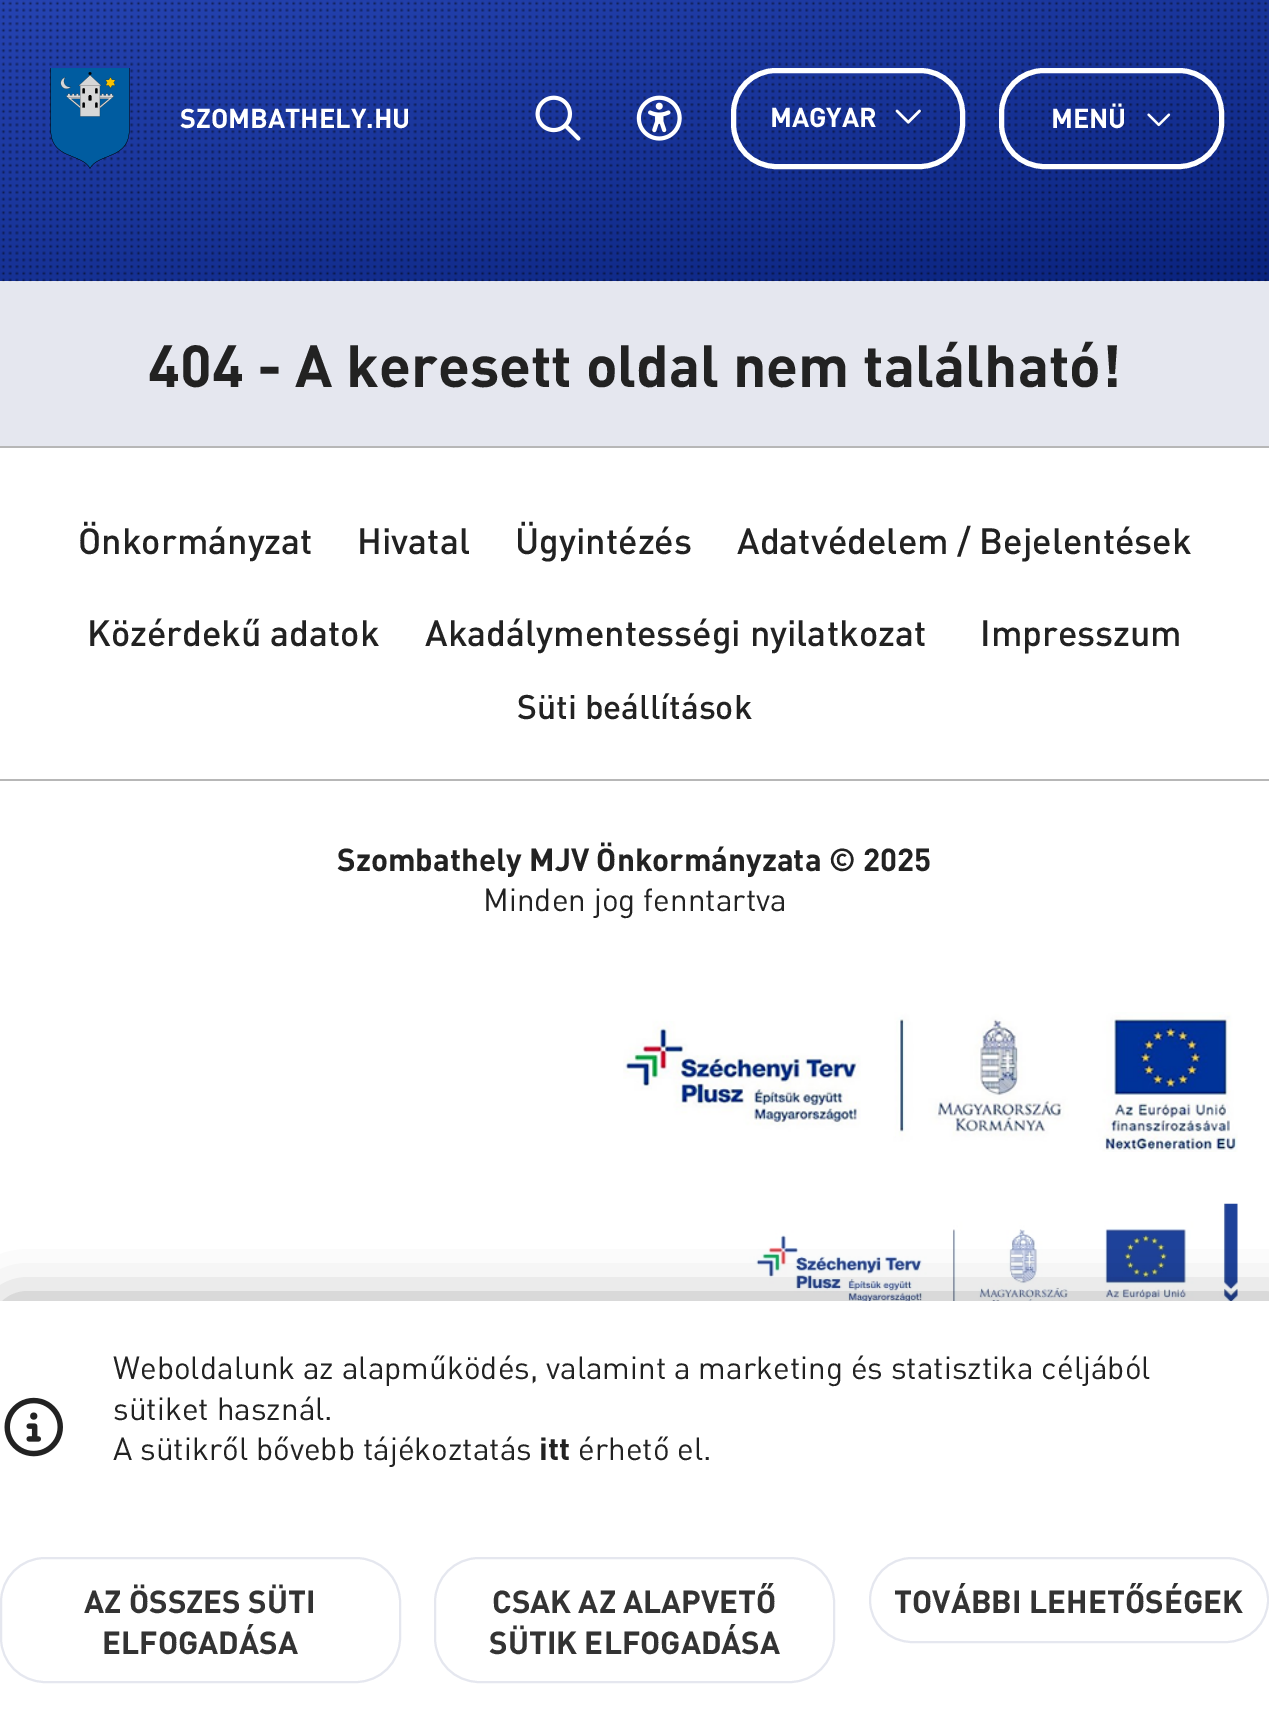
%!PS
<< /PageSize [1269 1727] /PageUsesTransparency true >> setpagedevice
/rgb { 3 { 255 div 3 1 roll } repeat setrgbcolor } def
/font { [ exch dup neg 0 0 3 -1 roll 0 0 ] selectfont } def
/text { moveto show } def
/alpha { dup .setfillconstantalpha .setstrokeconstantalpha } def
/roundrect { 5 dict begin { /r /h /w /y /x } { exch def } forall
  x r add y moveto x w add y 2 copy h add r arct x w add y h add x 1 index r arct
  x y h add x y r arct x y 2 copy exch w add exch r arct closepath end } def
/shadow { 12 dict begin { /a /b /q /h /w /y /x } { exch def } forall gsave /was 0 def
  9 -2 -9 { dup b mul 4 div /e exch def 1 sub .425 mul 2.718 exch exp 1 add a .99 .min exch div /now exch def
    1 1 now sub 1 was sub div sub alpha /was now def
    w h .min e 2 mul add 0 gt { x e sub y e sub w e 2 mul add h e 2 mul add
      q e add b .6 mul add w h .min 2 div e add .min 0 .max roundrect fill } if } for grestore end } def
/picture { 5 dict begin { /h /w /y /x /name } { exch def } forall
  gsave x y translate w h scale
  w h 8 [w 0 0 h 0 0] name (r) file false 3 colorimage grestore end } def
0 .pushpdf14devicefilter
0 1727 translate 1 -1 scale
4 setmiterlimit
255 255 255 rgb
0 0 1269 1727 rectfill
gsave 0 0 moveto 1269 0 rlineto 0 281 rlineto -1269 0 rlineto closepath clip newpath
<< /ShadingType 2 /ColorSpace /DeviceRGB /Coords [678 386 591 -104] /Extend [true true] /Function << /FunctionType 2 /Domain [0 1] /C0 [0.039 0.137 0.494] /C1 [0.145 0.263 0.694] /N 1 >> >> shfill grestore
229 231 239 rgb
0 281 1269 165 rectfill
(img_01.rgb) 1 1 1267 281 picture
(img_02.rgb) 50 68 80 101 picture
(img_03.rgb) 535 95 46 46 picture
(img_04.rgb) 636 95 46 46 picture
255 255 255 rgb
5 setlinewidth
733.5 70.5 229 96 42.5 roundrect stroke
(img_05.rgb) 895 109 26 15 picture
1001.5 70.5 220 96 42.5 roundrect stroke
(img_06.rgb) 1147 113 24 14 picture
183 183 183 rgb
0 446 1269 2 rectfill
0 779 1269 2 rectfill
(img_07.rgb) 623 1012 615 140 picture
(img_08.rgb) 731 1203 507 98 picture
0 0 0 rgb
11 1312 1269 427 0 28 0.5 shadow
255 255 255 rgb
0 1301 1269 426 rectfill
(img_09.rgb) 4 1397 59 60 picture
229 231 239 rgb
2 setlinewidth
1 1558 399 124 44 roundrect stroke
435 1558 399 124 44 roundrect stroke
870 1558 398 84 42 roundrect stroke
/DIN-Bold 27 font
255 255 255 rgb
(SZOMBATHELY.HU) 180 128 text
(MAGYAR) 770 127 text
(MENÜ) 1051 128 text
/DIN-Bold 58.5 font
34 34 34 rgb
(404 - A keresett oldal nem található!) 148 387 text
/DIN-Medium 36 font
(Önkormányzat) 78 554 text
(Hivatal) 357 554 text
(Ügyintézés) 515 554 text
(Adatvédelem / Bejelentések) 737 554 text
(Közérdekű adatok) 87 646 text
(Akadálymentességi nyilatkozat) 425 646 text
(Impresszum) 980 646 text
/DIN-Medium 33.75 font
(Süti beállítások) 517 719 text
/DIN-Bold 31.5 font
(Szombathely MJV Önkormányzata © 2025) 337 871 text
/DIN-Regular 31.5 font
(Minden jog fenntartva) 483 911 text
(Weboldalunk az alapműködés, valamint a marketing és statisztika céljából) 113 1379 text
(sütiket használ.) 113 1420 text
(A sütikről bővebb tájékoztatás) 113 1460 text
/DIN-Bold 31.5 font
(itt) 539 1460 text
/DIN-Regular 31.5 font
(érhető el.) 578 1460 text
/DIN-Bold 31.5 font
51 51 51 rgb
(AZ ÖSSZES SÜTI) 84 1613 text
(ELFOGADÁSA) 102 1654 text
(CSAK AZ ALAPVETŐ) 492 1613 text
(SÜTIK ELFOGADÁSA) 489 1654 text
(TOVÁBBI LEHETŐSÉGEK) 894 1613 text
.poppdf14devicefilter showpage
